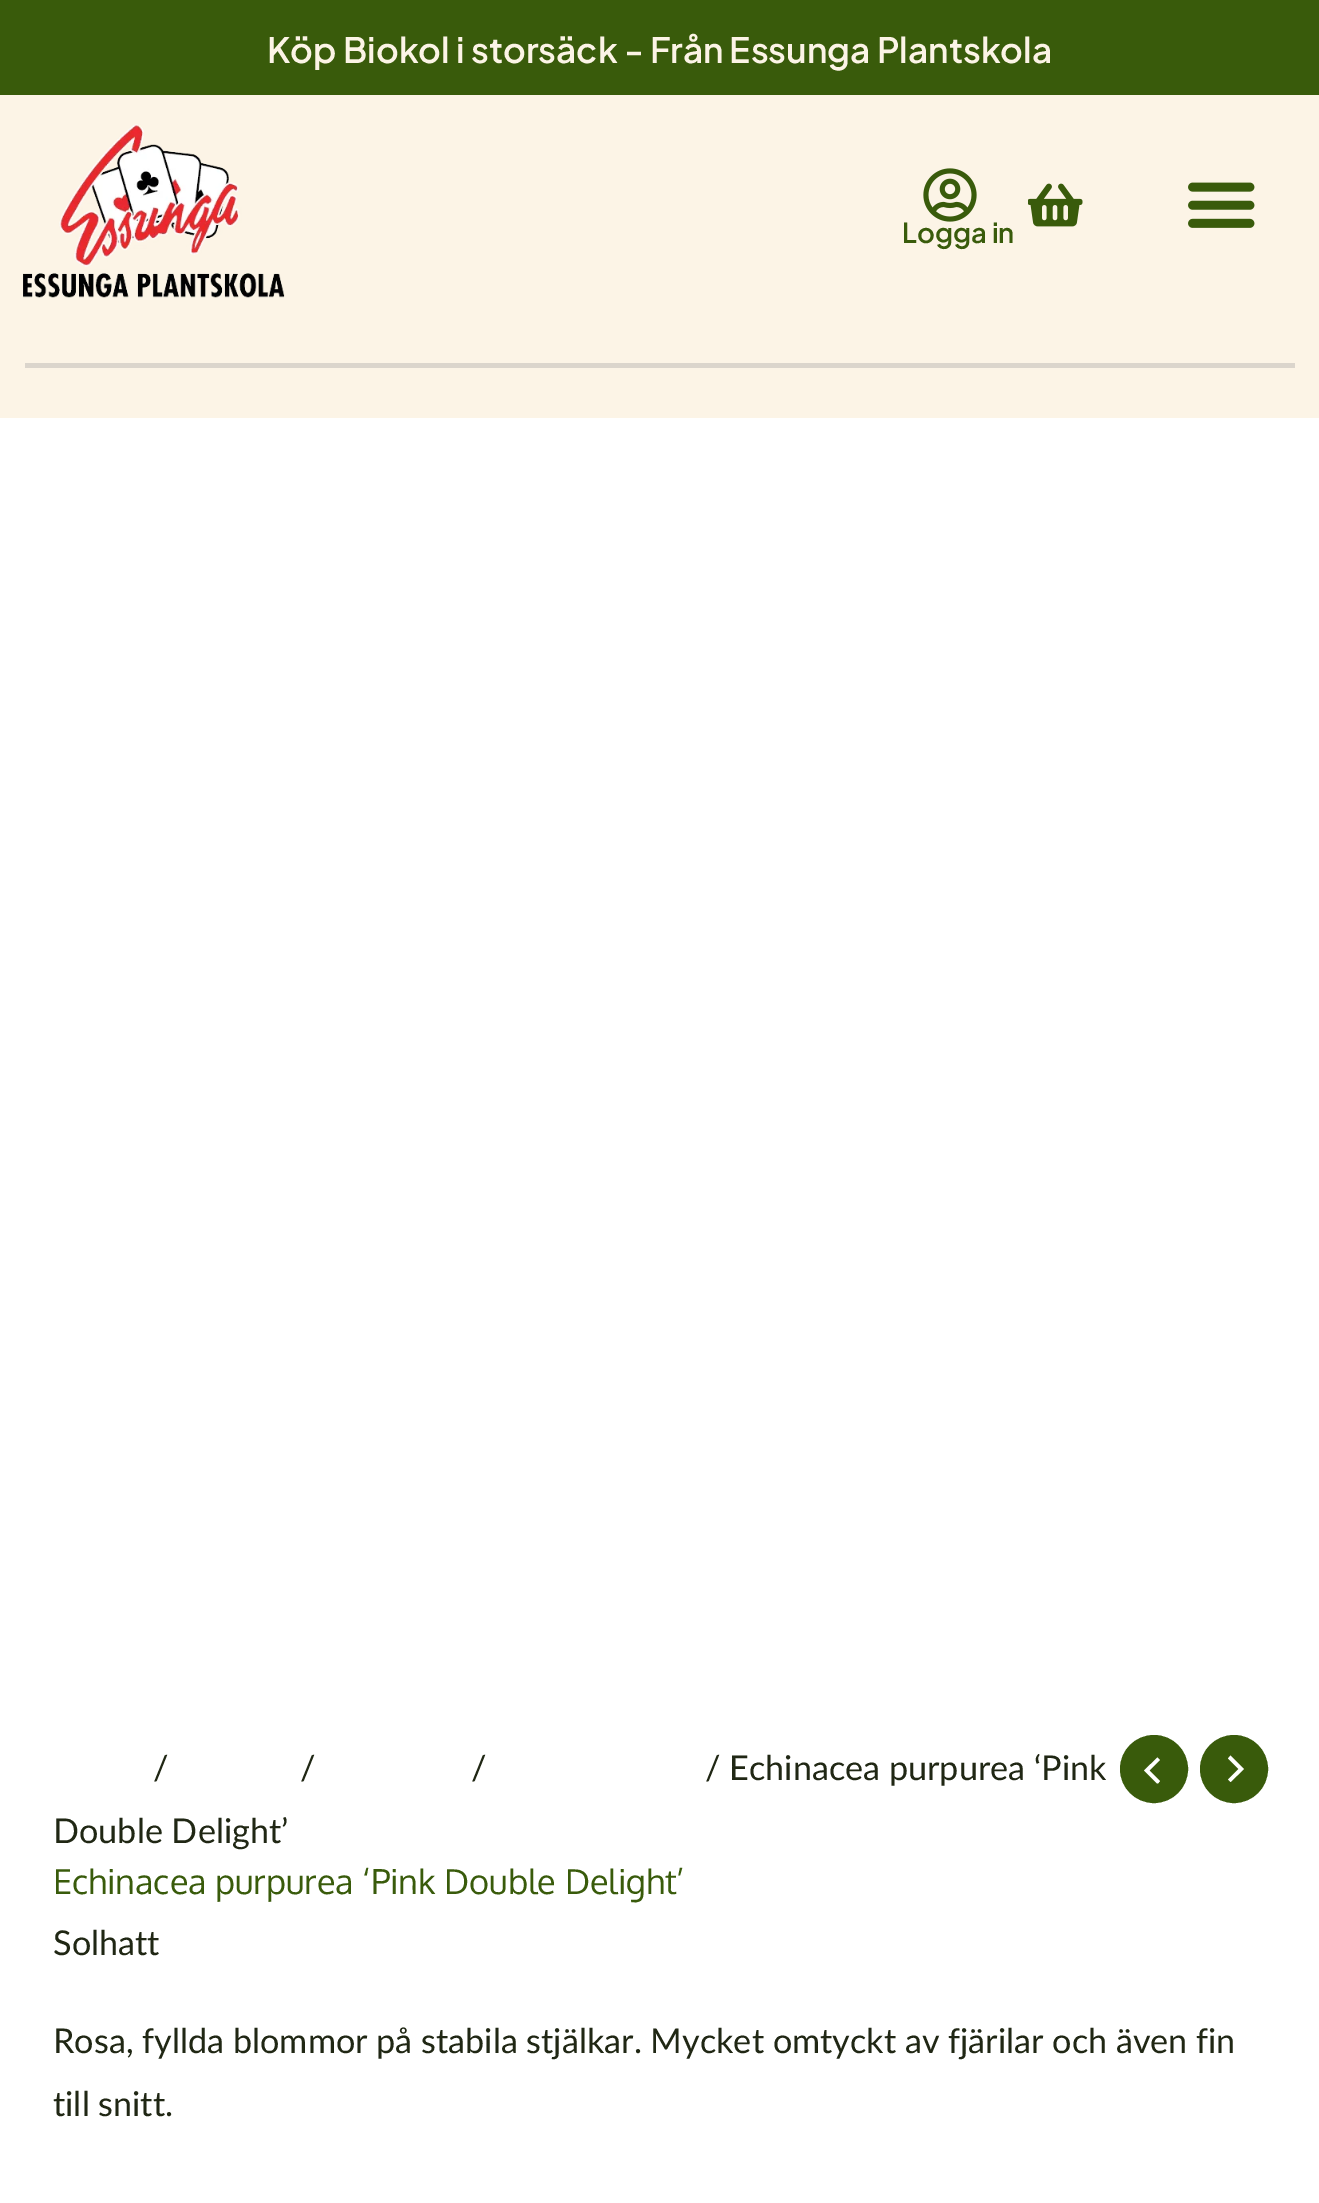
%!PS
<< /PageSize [1319 2203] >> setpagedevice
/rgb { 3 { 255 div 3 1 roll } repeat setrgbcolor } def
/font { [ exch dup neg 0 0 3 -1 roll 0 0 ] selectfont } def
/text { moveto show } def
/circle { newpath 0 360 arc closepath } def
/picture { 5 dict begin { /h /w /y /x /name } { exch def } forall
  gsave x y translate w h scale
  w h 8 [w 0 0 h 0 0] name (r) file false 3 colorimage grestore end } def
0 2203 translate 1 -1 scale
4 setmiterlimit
255 255 255 rgb
0 0 1319 2203 rectfill
57 91 11 rgb
0 0 1319 95 rectfill
252 244 230 rgb
0 95 1319 323 rectfill
(img_01.rgb) 23 124 262 174 picture
(img_02.rgb) 1028 183 55 44 picture
(img_03.rgb) 1188 182 67 46 picture
(img_04.rgb) 923 168 54 54 picture
219 213 204 rgb
25 363 1270 5 rectfill
57 91 11 rgb
1154 1769 32.5 circle gsave fill grestore
3 setlinewidth
stroke
255 255 255 rgb
1157.5 1757.5 moveto 2.5 2.5 rlineto -10.5 10.5 rlineto 10.5 10.5 rlineto -2 2.5 rlineto -1 0 rlineto -13 -13 rlineto closepath fill
57 91 11 rgb
1234 1769 32.5 circle gsave fill grestore
stroke
255 255 255 rgb
1230.5 1782 moveto 13.5 -13 rlineto -13.5 -13.5 rlineto -2.5 3 rlineto 10.5 10.5 rlineto -10.5 10.5 rlineto closepath fill
/PlusJakartaSans-SemiBold 35 font
252 244 230 rgb
(Köp Biokol i storsäck - Från Essunga Plantskola) 267 63 text
/PlusJakartaSans-SemiBold 27.5 font
57 91 11 rgb
(Logga in) 902 243 text
/Lato-Regular 34.2 font
32 39 20 rgb
(/) 153 1780 text
(/) 300 1780 text
(/) 471 1780 text
(/ Echinacea purpurea ‘Pink) 705 1780 text
(Double Delight’) 53 1843 text
/Oxygen-Regular 34.2 font
57 91 11 rgb
(Echinacea purpurea ‘Pink Double Delight’) 53 1894 text
/Lato-Regular 34.2 font
32 39 20 rgb
(Solhatt) 53 1955 text
(Rosa, fyllda blommor på stabila stjälkar. Mycket omtyckt av fjärilar och även fin) 53 2053 text
(till snitt.) 53 2116 text
showpage
